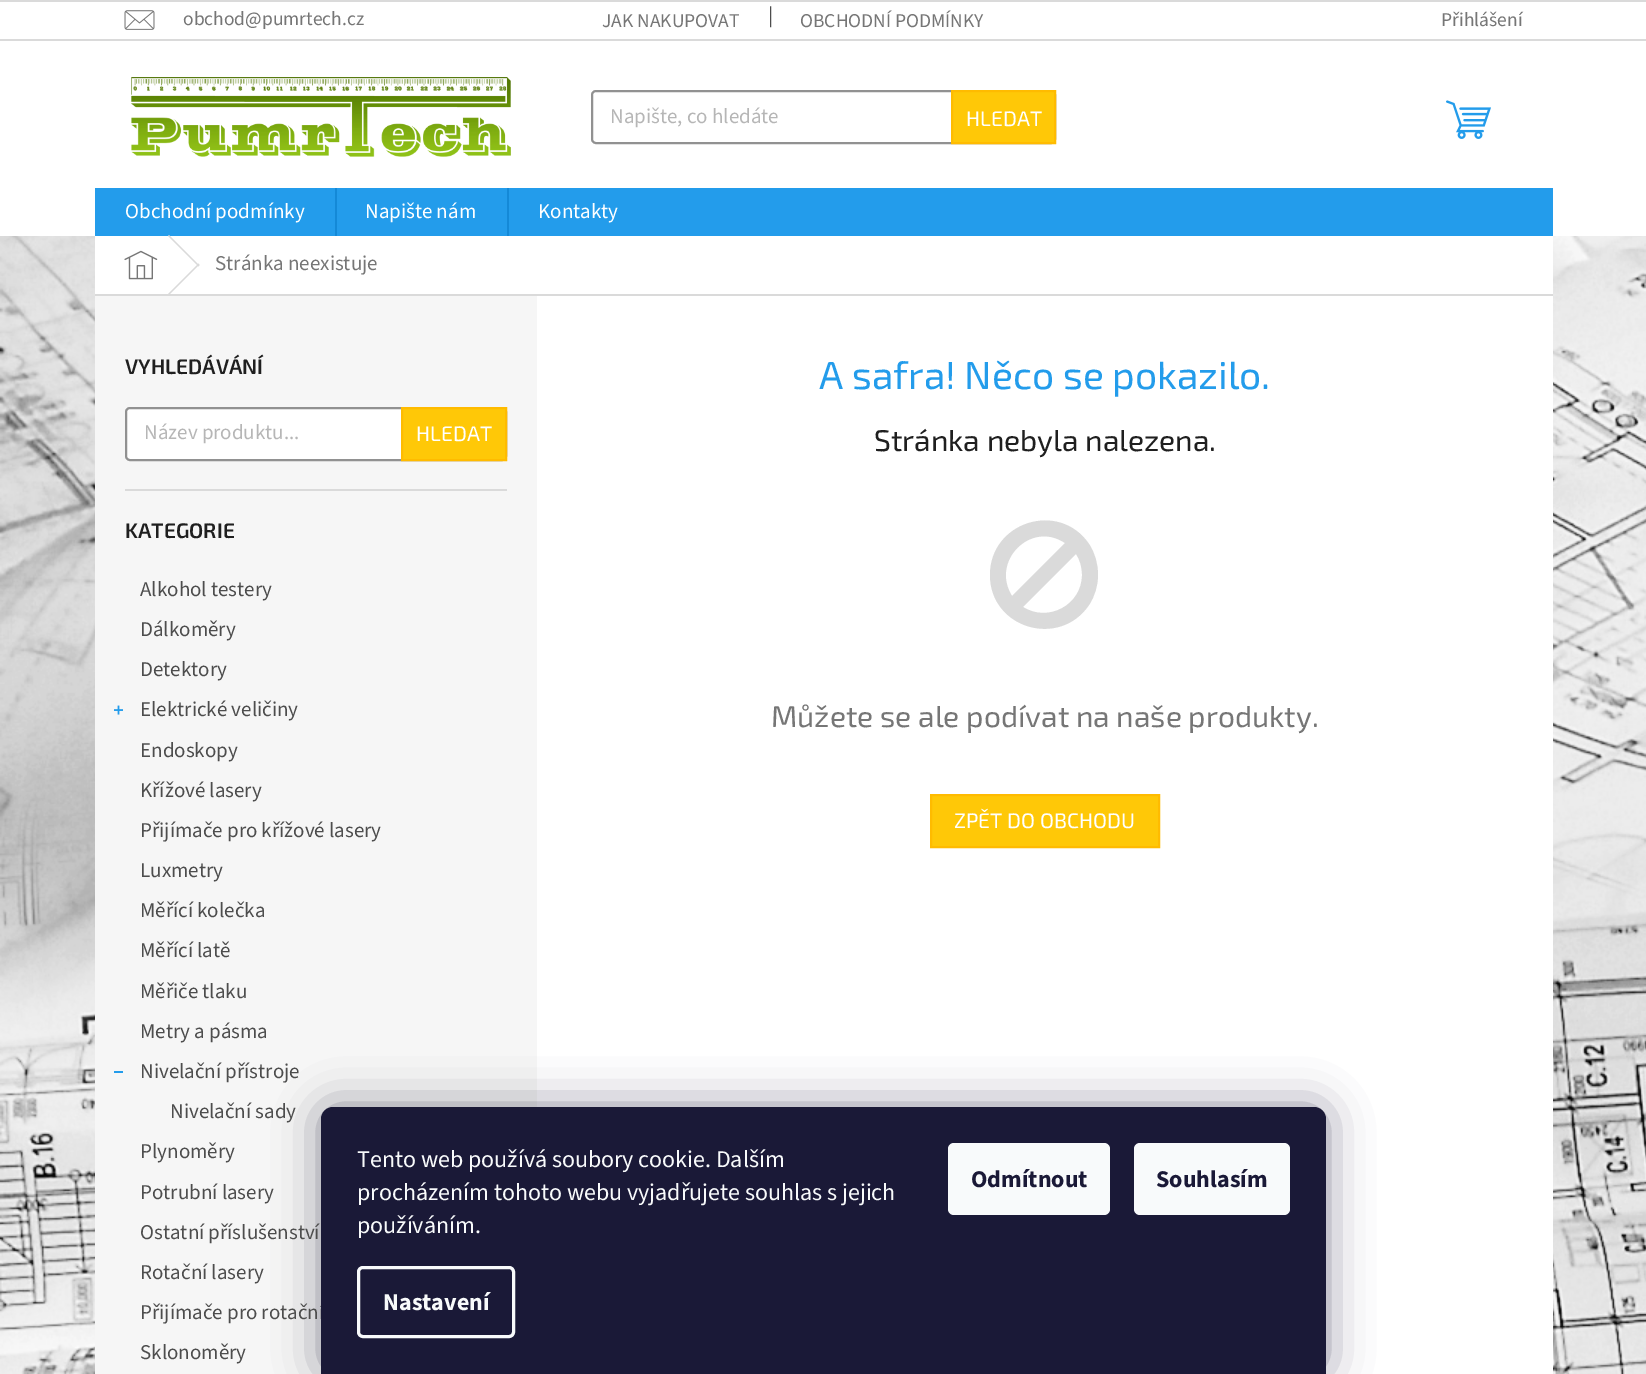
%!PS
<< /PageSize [1646 1374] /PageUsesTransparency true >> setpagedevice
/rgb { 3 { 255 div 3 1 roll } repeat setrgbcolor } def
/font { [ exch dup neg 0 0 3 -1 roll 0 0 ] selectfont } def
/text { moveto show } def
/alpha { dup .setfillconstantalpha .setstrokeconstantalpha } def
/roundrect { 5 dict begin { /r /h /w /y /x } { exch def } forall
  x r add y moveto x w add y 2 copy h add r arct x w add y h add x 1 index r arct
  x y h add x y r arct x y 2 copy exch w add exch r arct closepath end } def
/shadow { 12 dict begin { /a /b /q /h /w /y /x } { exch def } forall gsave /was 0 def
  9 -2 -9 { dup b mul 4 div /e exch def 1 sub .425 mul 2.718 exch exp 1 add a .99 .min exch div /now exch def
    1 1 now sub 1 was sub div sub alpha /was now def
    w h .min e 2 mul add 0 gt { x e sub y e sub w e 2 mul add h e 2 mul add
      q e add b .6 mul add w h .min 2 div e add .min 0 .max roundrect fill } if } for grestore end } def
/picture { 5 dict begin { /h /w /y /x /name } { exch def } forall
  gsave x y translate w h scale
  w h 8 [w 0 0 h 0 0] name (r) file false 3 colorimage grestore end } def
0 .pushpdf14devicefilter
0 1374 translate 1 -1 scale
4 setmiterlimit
255 255 255 rgb
0 0 1646 1374 rectfill
(img_01.rgb) 0 236 1646 1138 picture
218 218 218 rgb
0 0 1646 2 rectfill
0 39 1646 2 rectfill
(img_02.rgb) 124 10 31 20 picture
(img_03.rgb) 131 77 380 80 picture
145 145 145 rgb
2 setlinewidth
592 91 463 52 4 roundrect stroke
255 200 7 rgb
952 91 moveto 103 0 rlineto 0 52 rlineto -103 0 rlineto closepath gsave fill grestore
255 187 0 rgb
stroke
(img_04.rgb) 1446 100 45 39 picture
35 156 235 rgb
95 188 1458 48 rectfill
20 137 215 rgb
335 188 2 48 rectfill
507 188 2 48 rectfill
255 255 255 rgb
95 236 1458 58 rectfill
218 218 218 rgb
95 294 1458 2 rectfill
(img_05.rgb) 124 250 34 30 picture
168 236 moveto 1 -1 rlineto 30.5 30.5 rlineto -1 1 rlineto closepath fill
198.5 263.5 moveto 1 1 rlineto -30.5 30.5 rlineto -1 -1 rlineto closepath fill
255 255 255 rgb
537 296 1016 1078 rectfill
246 246 246 rgb
95 296 442 1078 rectfill
218 218 218 rgb
125 489 382 2 rectfill
255 255 255 rgb
126 408 380 52 4 roundrect gsave fill grestore
145 145 145 rgb
stroke
255 200 7 rgb
402 408 moveto 104 0 rlineto 0 52 rlineto -104 0 rlineto closepath gsave fill grestore
255 187 0 rgb
stroke
(img_06.rgb) 114 705 9 10 picture
35 156 235 rgb
114 1071 9 2 rectfill
218 218 218 rgb
1082 575 moveto 0 -8 -2 -15 -6 -21 rcurveto -53 53 rlineto 25 16 59 -2 59 -32 rcurveto closepath 1012 596 moveto 53 -53 rlineto -34 -23 -75 18 -53 53 rcurveto closepath 1098 575 moveto 0 10 -3 21 -9 30 rcurveto -30 44 -99 23 -99 -30 rcurveto 0 -53 69 -75 99 -31 rcurveto 6 9 9 20 9 31 rcurveto closepath fill
255 200 7 rgb
931 795 moveto 228 0 rlineto 0 52 rlineto -228 0 rlineto closepath gsave fill grestore
255 187 0 rgb
stroke
27 25 57 rgb
321 1107 1005 267 12 22.5 0.5 shadow
/SourceSans3-Regular 19.5 font
118 118 118 rgb
(obchod@pumrtech.cz) 183 25 text
(JAK NAKUPOVAT) 602 27 text
/SourceSans3-Regular 21 font
77 77 77 rgb
(|) 768 22 text
/SourceSans3-Regular 19.5 font
118 118 118 rgb
(OBCHODNÍ PODMÍNKY) 800 27 text
(Přihlášení) 1441 26 text
/SourceSans3-Regular 21 font
182 182 182 rgb
(Napište, co hledáte) 610 123 text
/Exo2-Regular 21 font
255 255 255 rgb
(HLEDAT) 966 126 text
/SourceSans3-Regular 21 font
(Obchodní podmínky) 125 218 text
(Napište nám) 365 218 text
(Kontakty) 538 218 text
118 118 118 rgb
(Stránka neexistuje) 215 270 text
/Exo2-SemiBold 21 font
31 31 31 rgb
(VYHLEDÁVÁNÍ) 125 374 text
/SourceSans3-Regular 21 font
182 182 182 rgb
(Název produktu...) 144 439 text
/Exo2-Regular 21 font
255 255 255 rgb
(HLEDAT) 416 441 text
/Exo2-SemiBold 21 font
31 31 31 rgb
(KATEGORIE) 125 538 text
/SourceSans3-Regular 21 font
77 77 77 rgb
(Alkohol testery) 140 596 text
(Dálkoměry) 140 636 text
(Detektory) 140 676 text
(Elektrické veličiny) 140 716 text
(Endoskopy) 140 757 text
(Křížové lasery) 140 797 text
(Přijímače pro křížové lasery) 140 837 text
(Luxmetry) 140 877 text
(Měřící kolečka) 140 917 text
(Měřící latě) 140 957 text
(Měřiče tlaku) 140 998 text
(Metry a pásma) 140 1038 text
(Nivelační přístroje) 140 1078 text
(Nivelační sady) 170 1118 text
(Plynoměry) 140 1158 text
(Potrubní lasery) 140 1199 text
(Ostatní příslušenství) 140 1239 text
(Rotační lasery) 140 1279 text
(Přijímače pro rotační) 140 1319 text
(Sklonoměry) 140 1359 text
/Exo2-Regular 39 font
35 156 235 rgb
(A safra! Něco se pokazilo.) 819 389 text
/Exo2-Regular 30 font
31 31 31 rgb
(Stránka nebyla nalezena.) 874 451 text
118 118 118 rgb
(Můžete se ale podívat na naše produkty.) 771 727 text
/Exo2-Regular 21 font
255 255 255 rgb
(ZPĚT DO OBCHODU) 954 828 text
26 25 55 rgb
333 1107 moveto 981 0 rlineto 6.5 0 12 5.5 12 12 rcurveto 0 255 rlineto -1005 0 rlineto 0 -255 rlineto 0 -6.5 5.5 -12 12 -12 rcurveto closepath fill
/SourceSans3-Regular 24 font
248 250 251 rgb
(Tento web používá soubory cookie. Dalším) 357 1167 text
(procházením tohoto webu vyjadřujete souhlas s jejich) 357 1200 text
(používáním.) 357 1233 text
3 setlinewidth
358.5 1267.5 155 69 4.5 roundrect stroke
/SourceSans3-Bold 24 font
(Nastavení) 383 1310 text
948 1143 162 72 6 roundrect fill
26 25 55 rgb
(Odmítnout) 971 1187 text
248 250 251 rgb
1134 1143 156 72 6 roundrect fill
26 25 55 rgb
(Souhlasím) 1156 1187 text
.poppdf14devicefilter showpage
